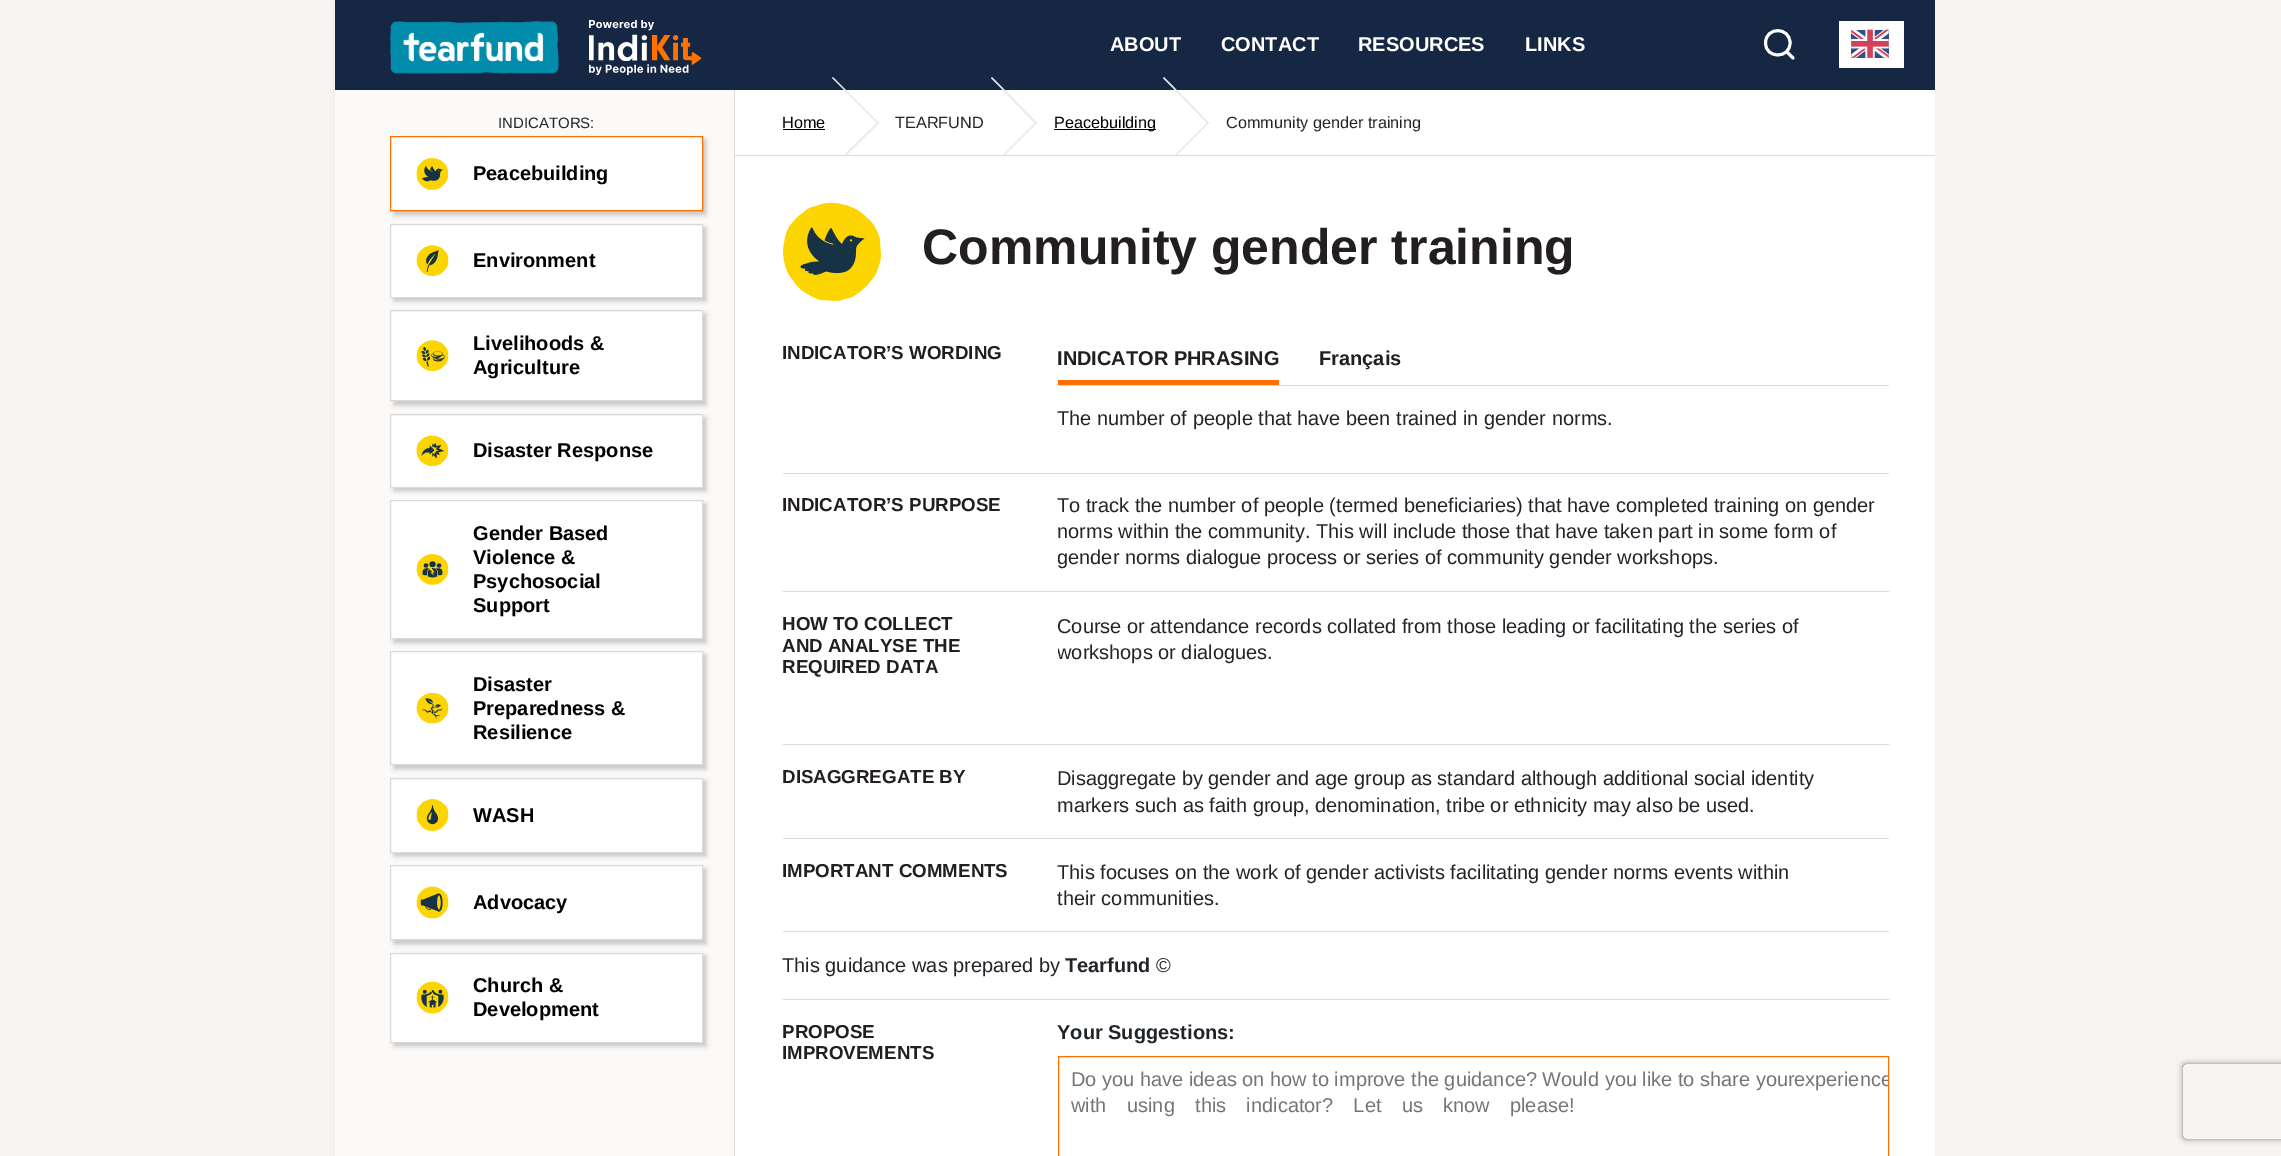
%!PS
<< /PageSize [2281 1156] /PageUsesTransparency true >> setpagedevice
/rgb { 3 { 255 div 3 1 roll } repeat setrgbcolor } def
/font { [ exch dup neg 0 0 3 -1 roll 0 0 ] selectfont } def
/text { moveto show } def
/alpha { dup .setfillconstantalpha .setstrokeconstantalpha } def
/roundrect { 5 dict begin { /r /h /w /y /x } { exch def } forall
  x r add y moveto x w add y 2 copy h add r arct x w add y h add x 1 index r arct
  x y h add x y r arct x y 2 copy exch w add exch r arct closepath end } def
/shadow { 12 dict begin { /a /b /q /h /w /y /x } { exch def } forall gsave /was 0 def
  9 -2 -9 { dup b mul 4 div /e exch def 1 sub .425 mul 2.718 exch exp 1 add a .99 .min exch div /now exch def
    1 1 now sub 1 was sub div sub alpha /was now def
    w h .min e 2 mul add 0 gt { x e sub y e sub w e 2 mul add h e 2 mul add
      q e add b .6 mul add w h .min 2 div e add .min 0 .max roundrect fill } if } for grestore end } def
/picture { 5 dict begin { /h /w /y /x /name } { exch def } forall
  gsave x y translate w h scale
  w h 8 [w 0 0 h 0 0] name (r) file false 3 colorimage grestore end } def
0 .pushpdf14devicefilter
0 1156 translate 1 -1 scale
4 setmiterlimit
246 245 243 rgb
0 0 2281 1156 rectfill
234 235 237 rgb
335 5 1590 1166 0 5 1 shadow
255 255 255 rgb
735 90 1200 1066 rectfill
22 39 67 rgb
335 0 1600 90 rectfill
(img_01.rgb) 390 21 169 53 picture
(img_02.rgb) 589 20 112 55 picture
255 255 255 rgb
2.9 setlinewidth
1 setlinecap
1793 58 moveto -6.5 -6.5 rlineto 1790 43 moveto 0 16 -24.5 16 -24.5 0 rcurveto 0 -16.5 24.5 -16.5 24.5 0 rcurveto closepath stroke
1839 21 65 47 rectfill
(img_03.rgb) 1851 29 38 29 picture
251 250 248 rgb
335 90 399 1066 rectfill
219 218 216 rgb
734 90 1 1066 rectfill
196 196 196 rgb
394 140 312 75 0 2.5 1 shadow
255 255 255 rgb
390.5 136.5 moveto 312 0 rlineto 0 74 rlineto -312 0 rlineto closepath gsave fill grestore
255 111 1 rgb
1 setlinewidth
0 setlinecap
stroke
(img_04.rgb) 416 158 33 32 picture
196 196 196 rgb
394 228 312 73 0 2.5 1 shadow
255 255 255 rgb
390.5 224.5 moveto 312 0 rlineto 0 73 rlineto -312 0 rlineto closepath gsave fill grestore
219 218 216 rgb
stroke
(img_05.rgb) 416 245 33 31 picture
196 196 196 rgb
394 314 312 91 0 2.5 1 shadow
255 255 255 rgb
390.5 310.5 moveto 312 0 rlineto 0 90 rlineto -312 0 rlineto closepath gsave fill grestore
219 218 216 rgb
stroke
(img_06.rgb) 416 340 33 31 picture
196 196 196 rgb
394 418 312 73 0 2.5 1 shadow
255 255 255 rgb
390.5 414.5 moveto 312 0 rlineto 0 73 rlineto -312 0 rlineto closepath gsave fill grestore
219 218 216 rgb
stroke
(img_07.rgb) 416 435 33 31 picture
196 196 196 rgb
394 504 312 139 0 2.5 1 shadow
255 255 255 rgb
390.5 500.5 moveto 312 0 rlineto 0 138 rlineto -312 0 rlineto closepath gsave fill grestore
219 218 216 rgb
stroke
(img_08.rgb) 416 554 33 31 picture
196 196 196 rgb
394 655 312 114 0 2.5 1 shadow
255 255 255 rgb
390.5 651.5 moveto 312 0 rlineto 0 113 rlineto -312 0 rlineto closepath gsave fill grestore
219 218 216 rgb
stroke
(img_09.rgb) 416 693 33 31 picture
196 196 196 rgb
394 781 312 75 0 2.5 1 shadow
255 255 255 rgb
390.5 778.5 moveto 312 0 rlineto 0 74 rlineto -312 0 rlineto closepath gsave fill grestore
219 218 216 rgb
stroke
(img_10.rgb) 416 799 33 32 picture
196 196 196 rgb
394 869 312 75 0 2.5 1 shadow
255 255 255 rgb
390.5 865.5 moveto 312 0 rlineto 0 74 rlineto -312 0 rlineto closepath gsave fill grestore
219 218 216 rgb
stroke
(img_11.rgb) 416 886 33 33 picture
196 196 196 rgb
394 956 312 90 0 2.5 1 shadow
255 255 255 rgb
390.5 953.5 moveto 312 0 rlineto 0 89 rlineto -312 0 rlineto closepath gsave fill grestore
219 218 216 rgb
stroke
(img_12.rgb) 416 981 33 33 picture
735 155 1200 1 rectfill
0 0 0 rgb
783 129 42 1 rectfill
231 231 229 rgb
833 77 moveto 46 46 rlineto -1 1 rlineto -46 -46 rlineto closepath fill
gsave
783 90 112 65 rectclip
878 122 moveto 1 1 rlineto -46 45 rlineto -1 -1 rlineto closepath fill
grestore
992 77 moveto 45 46 rlineto -1 1 rlineto -45 -46 rlineto closepath fill
gsave
895 90 159 65 rectclip
1036 122 moveto 1 1 rlineto -45 45 rlineto -1 -1 rlineto closepath fill
grestore
0 0 0 rgb
1054 129 102 1 rectfill
231 231 229 rgb
1164 77 moveto 45 46 rlineto -1 1 rlineto -45 -46 rlineto closepath fill
gsave
1054 90 172 65 rectclip
1208 122 moveto 1 1 rlineto -45 45 rlineto -1 -1 rlineto closepath fill
grestore
(img_13.rgb) 783 202 98 99 picture
219 218 216 rgb
783 473 1106 1 rectfill
1058 385 831 1 rectfill
255 111 1 rgb
1058 380 221 5 rectfill
219 218 216 rgb
783 591 1106 1 rectfill
783 744 1106 1 rectfill
783 838 1106 1 rectfill
783 931 1106 1 rectfill
783 999 1106 1 rectfill
255 111 1 rgb
1058.5 1056.5 830 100 rectstroke
gsave
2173 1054 moveto 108 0 rlineto 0 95 rlineto -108 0 rlineto closepath 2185.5 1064 moveto 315 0 rlineto 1.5 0 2.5 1 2.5 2.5 rcurveto 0 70 rlineto 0 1.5 -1 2.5 -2.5 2.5 rcurveto -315 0 rlineto -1.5 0 -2.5 -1 -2.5 -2.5 rcurveto 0 -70 rlineto 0 -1.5 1 -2.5 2.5 -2.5 rcurveto closepath eoclip newpath
128 128 128 rgb
2183 1064 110 75 2.5 3 1 shadow
grestore
/LiberationSans-Bold 20 font
255 255 255 rgb
(ABOUT) 1110 51 text
(CONTACT) 1221 51 text
(RESOURCES) 1358 51 text
(LINKS) 1525 51 text
/LiberationSans-Regular 15 font
33 37 41 rgb
(INDICATORS:) 498 128 text
/LiberationSans-Bold 20 font
0 0 0 rgb
(Peacebuilding) 473 180 text
(Environment) 473 267 text
(Livelihoods &) 473 350 text
(Agriculture) 473 374 text
(Disaster Response) 473 457 text
(Gender Based) 473 540 text
(Violence &) 473 564 text
(Psychosocial) 473 588 text
(Support) 473 612 text
(Disaster) 473 691 text
(Preparedness &) 473 715 text
(Resilience) 473 739 text
(WASH) 473 822 text
(Advocacy) 473 909 text
(Church &) 473 992 text
(Development) 473 1016 text
/LiberationSans-Regular 16.25 font
(Home) 782 128 text
33 37 41 rgb
(TEARFUND) 895 128 text
0 0 0 rgb
(Peacebuilding) 1054 128 text
33 37 41 rgb
(Community gender training) 1226 128 text
/LiberationSans-Bold 50 font
35 31 32 rgb
(Community gender training) 922 264 text
/LiberationSans-Bold 18.75 font
(INDICATOR’S WORDING) 782 359 text
/LiberationSans-Bold 20 font
(INDICATOR PHRASING) 1057 365 text
(Français) 1319 365 text
/LiberationSans-Regular 20 font
33 37 41 rgb
(The number of people that have been trained in gender norms.) 1057 425 text
/LiberationSans-Bold 18.75 font
35 31 32 rgb
(INDICATOR’S PURPOSE) 782 511 text
/LiberationSans-Regular 20 font
33 37 41 rgb
(To track the number of people \(termed beneficiaries\) that have completed training on gender) 1057 512 text
(norms within the community. This will include those that have taken part in some form of) 1057 538 text
gsave
1058 494 831 77 rectclip
(gender norms dialogue process or series of community gender workshops.) 1057 564 text
grestore
/LiberationSans-Bold 18.75 font
35 31 32 rgb
(HOW TO COLLECT) 782 630 text
(AND ANALYSE THE) 782 652 text
(REQUIRED DATA) 782 673 text
/LiberationSans-Regular 20 font
33 37 41 rgb
(Course or attendance records collated from those leading or facilitating the series of) 1057 633 text
gsave
1058 613 831 111 rectclip
(workshops or dialogues.) 1057 659 text
grestore
/LiberationSans-Bold 18.75 font
35 31 32 rgb
(DISAGGREGATE BY) 782 783 text
/LiberationSans-Regular 20 font
33 37 41 rgb
(Disaggregate by gender and age group as standard although additional social identity) 1057 785 text
(markers such as faith group, denomination, tribe or ethnicity may also be used.) 1057 812 text
/LiberationSans-Bold 18.75 font
35 31 32 rgb
(IMPORTANT COMMENTS) 782 877 text
/LiberationSans-Regular 20 font
33 37 41 rgb
(This focuses on the work of gender activists facilitating gender norms events within) 1057 879 text
(their communities.) 1057 905 text
(This guidance was prepared by) 782 972 text
/LiberationSans-Bold 20 font
(Tearfund) 1065 972 text
/LiberationSans-Regular 20 font
(©) 1156 972 text
/LiberationSans-Bold 18.75 font
35 31 32 rgb
(PROPOSE) 782 1038 text
(IMPROVEMENTS) 782 1059 text
/LiberationSans-Bold 20 font
33 37 41 rgb
(Your Suggestions:) 1057 1039 text
/LiberationSans-Regular 20 font
117 117 117 rgb
(Do you have ideas on how to improve the guidance? Would you like to share your) 1071 1086 text
gsave
1059 1058 829 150 rectclip
(experience) 1794 1086 text
grestore
1071 1112 moveto 14.75 0 32 (with using this indicator? Let us know please!) widthshow
.poppdf14devicefilter showpage
